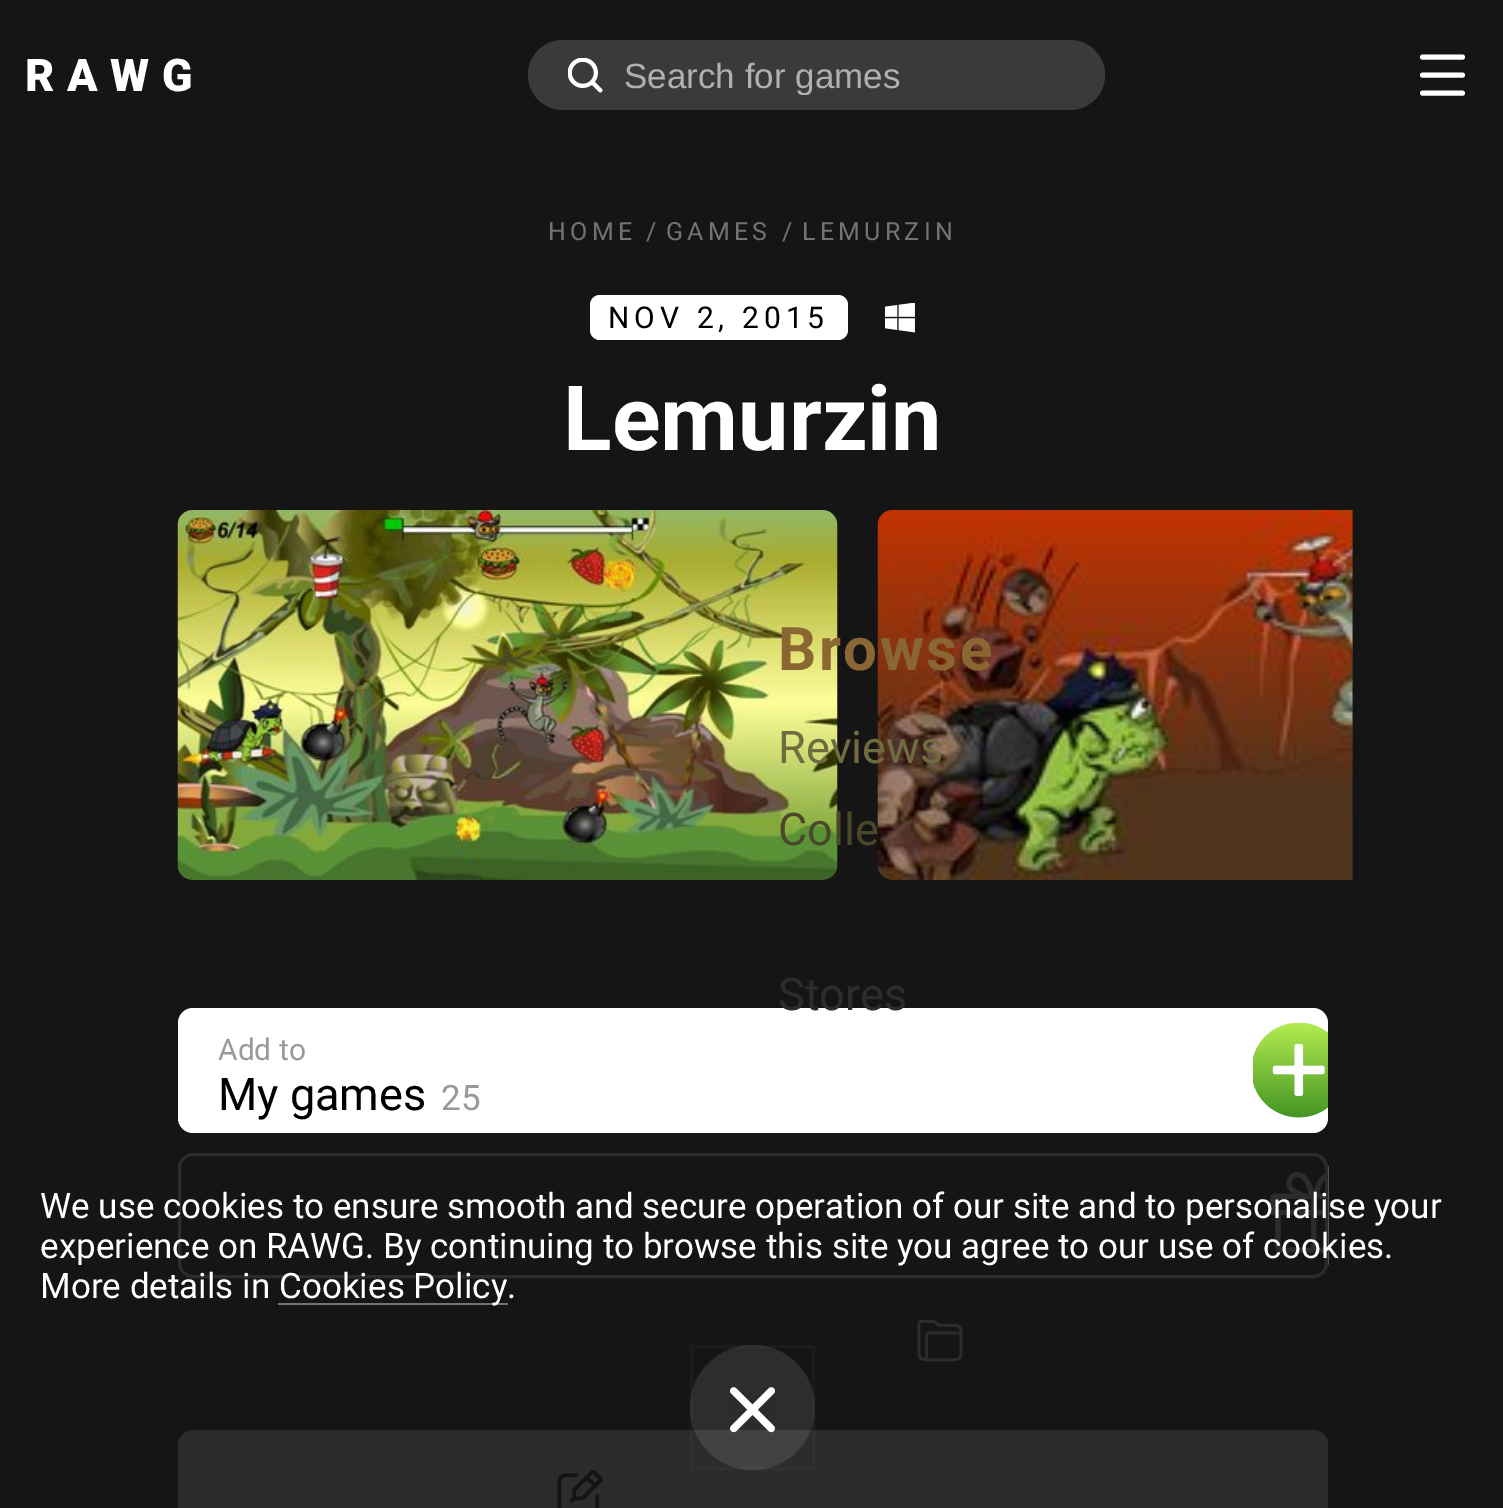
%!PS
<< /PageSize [1503 1508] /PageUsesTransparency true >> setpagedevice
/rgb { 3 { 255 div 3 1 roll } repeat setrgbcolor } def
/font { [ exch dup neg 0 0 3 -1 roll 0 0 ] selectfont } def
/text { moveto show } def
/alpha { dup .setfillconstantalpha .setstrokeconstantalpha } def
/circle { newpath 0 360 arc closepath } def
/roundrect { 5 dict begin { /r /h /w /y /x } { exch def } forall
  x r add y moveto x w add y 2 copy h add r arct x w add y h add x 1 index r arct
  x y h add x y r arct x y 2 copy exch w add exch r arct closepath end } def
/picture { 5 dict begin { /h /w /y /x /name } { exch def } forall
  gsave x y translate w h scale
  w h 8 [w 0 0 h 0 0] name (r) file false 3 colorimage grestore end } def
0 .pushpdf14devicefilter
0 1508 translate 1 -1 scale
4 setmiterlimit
21 21 21 rgb
0 0 1503 1508 rectfill
58 58 58 rgb
528 40 577 70 35 roundrect fill
(img_01.rgb) 568 58 35 35 picture
255 255 255 rgb
5 setlinewidth
1 setlinecap
1422.5 57 moveto 40 0 rlineto 1422.5 75 moveto 40 0 rlineto 1422.5 93 moveto 40 0 rlineto stroke
590 295 258 45 10 roundrect fill
(img_02.rgb) 885 303 30 30 picture
(img_03.rgb) 177 510 661 370 picture
33 33 33 rgb
893 510 moveto 460 0 rlineto 0 370 rlineto -460 0 rlineto -8.5 0 -15 -6.5 -15 -15 rcurveto 0 -340 rlineto 0 -8.5 6.5 -15 15 -15 rcurveto closepath fill
(img_04.rgb) 877 510 476 370 picture
255 255 255 rgb
178 1008 1150 125 15 roundrect fill
(img_05.rgb) 1253 1023 75 95 picture
3 setlinewidth
0 setlinecap
179.5 1154.5 1147 122 13.5 roundrect stroke
(img_06.rgb) 1269 1172 56 81 picture
(img_07.rgb) 917 1320 46 42 picture
178 1430 1150 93 15 roundrect fill
(img_08.rgb) 557 1470 46 38 picture
0.9 alpha
21 21 21 rgb
178 1153 1150 355 rectfill
1 alpha
115 115 115 rgb
278 1303 230 2 rectfill
0.1 alpha
255 255 255 rgb
752.5 1407.5 62.5 circle fill
0.05 alpha
151 151 151 rgb
691.5 1346.5 122 122 rectstroke
1 alpha
(img_09.rgb) 730 1387 45 46 picture
/Roboto-Black 45 font
255 255 255 rgb
25 91 moveto 12.5 0 (RAWG) ashow
gsave
623 55 452 40 rectclip
/LiberationSans-Regular 35 font
176 176 176 rgb
(Search for games) 624 88 text
grestore
/Roboto-Bold 60 font
138 102 51 rgb
778 670 moveto 2.5 0 (Browse) ashow
/Roboto-Regular 45 font
113 108 64 rgb
(Reviews) 778 763 text
74 72 41 rgb
(Colle) 778 845 text
44 44 44 rgb
(Stores) 778 1010 text
/Roboto-Regular 25 font
115 115 115 rgb
548 240 moveto 4.25 0 (HOME) ashow
(/) 646 240 text
666 240 moveto 4.25 0 (GAMES) ashow
(/) 782 240 text
802 240 moveto 4.25 0 (LEMURZIN) ashow
/Roboto-Regular 30 font
0 0 0 rgb
608 328 moveto 5 0 (NOV 2, 2015) ashow
/Roboto-Bold 90 font
255 255 255 rgb
(Lemurzin) 563 450 text
/Roboto-Regular 30 font
153 153 153 rgb
(Add to) 218 1060 text
/Roboto-Regular 45 font
0 0 0 rgb
(My games) 218 1110 text
/Roboto-Regular 35 font
153 153 153 rgb
(25) 441 1110 text
255 255 255 rgb
(We use cookies to ensure smooth and secure operation of our site and to personalise your) 40 1218 text
(experience on RAWG. By continuing to browse this site you agree to our use of cookies.) 40 1258 text
(More details in) 40 1298 text
(Cookies Policy.) 279 1298 text
.poppdf14devicefilter showpage
